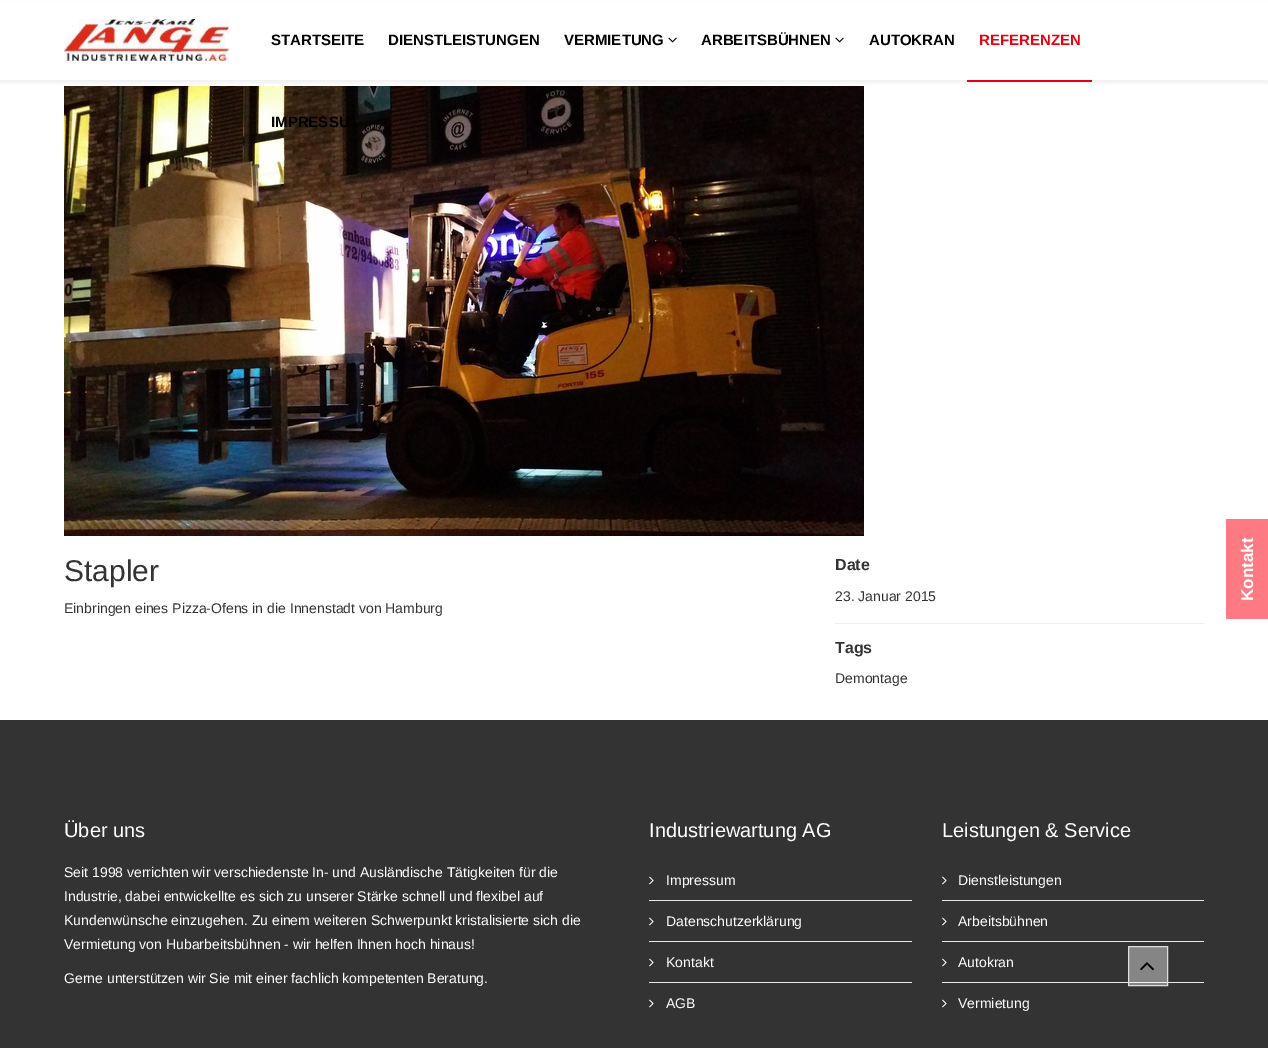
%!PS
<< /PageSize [1268 1048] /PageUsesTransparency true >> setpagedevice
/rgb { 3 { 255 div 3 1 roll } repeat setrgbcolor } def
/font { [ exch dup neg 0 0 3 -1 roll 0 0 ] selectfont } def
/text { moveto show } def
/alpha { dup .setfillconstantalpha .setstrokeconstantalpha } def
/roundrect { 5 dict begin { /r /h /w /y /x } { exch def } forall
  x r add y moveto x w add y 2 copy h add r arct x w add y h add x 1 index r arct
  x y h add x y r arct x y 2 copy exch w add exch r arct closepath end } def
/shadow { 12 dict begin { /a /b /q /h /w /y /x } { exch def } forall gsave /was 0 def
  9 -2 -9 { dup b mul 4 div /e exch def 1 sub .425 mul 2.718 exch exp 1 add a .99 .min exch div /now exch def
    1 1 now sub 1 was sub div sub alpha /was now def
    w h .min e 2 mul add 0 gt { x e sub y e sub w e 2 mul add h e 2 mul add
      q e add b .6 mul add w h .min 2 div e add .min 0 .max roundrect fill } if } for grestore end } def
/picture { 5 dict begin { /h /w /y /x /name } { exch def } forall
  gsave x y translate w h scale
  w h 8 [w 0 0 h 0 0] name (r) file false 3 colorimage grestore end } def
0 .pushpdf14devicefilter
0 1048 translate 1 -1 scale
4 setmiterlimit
255 255 255 rgb
0 0 1268 1048 rectfill
(img_03.rgb) 64 86 800 450 picture
0 0 0 rgb
0 3 1268 80 0 1.5 0.05 shadow
255 255 255 rgb
0 2 1268 78 rectfill
(img_01.rgb) 64 19 165 42 picture
(img_02.rgb) 668 37 9 6 picture
(img_02.rgb) 835 37 9 6 picture
228 3 17 rgb
967 80 125 2 rectfill
238 238 238 rgb
835 623 369 1 rectfill
51 51 51 rgb
0 720 1268 328 rectfill
133 133 133 rgb
1129 947 38 38 rectfill
232 232 232 rgb
649 900 263 1 rectfill
(img_04.rgb) 649 876 5 9 picture
649 941 263 1 rectfill
(img_04.rgb) 649 917 5 9 picture
649 982 263 1 rectfill
(img_04.rgb) 649 958 5 9 picture
(img_04.rgb) 649 999 5 9 picture
942 900 262 1 rectfill
(img_04.rgb) 942 876 5 9 picture
942 941 262 1 rectfill
(img_04.rgb) 942 917 5 9 picture
942 982 262 1 rectfill
241 241 241 rgb
1128 982 40 1 rectfill
(img_04.rgb) 942 958 5 9 picture
(img_04.rgb) 942 999 5 9 picture
255 122 130 rgb
1226 519 42 100 rectfill
221 221 221 rgb
1128.5 946.5 39 39 rectstroke
(img_05.rgb) 1140 962 14 9 picture
/LiberationSans-Bold 15 font
0 0 0 rgb
(STARTSEITE) 271 45 text
(DIENSTLEISTUNGEN) 388 45 text
(VERMIETUNG) 564 45 text
(ARBEITSBÜHNEN) 701 45 text
(AUTOKRAN) 869 45 text
228 3 17 rgb
(REFERENZEN) 979 45 text
0 0 0 rgb
(IMPRESSU) 271 127 text
/LiberationSans-Regular 30 font
51 51 51 rgb
(Stapler) 64 581 text
/LiberationSans-Regular 14 font
(Einbringen eines Pizza-Ofens in die Innenstadt von Hamburg) 64 613 text
/LiberationSans-Bold 16 font
(Date) 835 570 text
/LiberationSans-Regular 14 font
(23. Januar 2015) 835 601 text
/LiberationSans-Bold 16 font
(Tags) 835 653 text
/LiberationSans-Regular 14 font
(Demontage) 835 683 text
/LiberationSans-Regular 20 font
255 255 255 rgb
(Über uns) 64 837 text
/LiberationSans-Regular 14 font
(Seit 1998 verrichten wir verschiedenste In- und Ausländische Tätigkeiten für die) 64 877 text
(Industrie, dabei entwickellte es sich zu unserer Stärke schnell und flexibel auf) 64 901 text
(Kundenwünsche einzugehen. Zu einem weiteren Schwerpunkt kristalisierte sich die) 64 925 text
(Vermietung von Hubarbeitsbühnen - wir helfen Ihnen hoch hinaus!) 64 949 text
(Gerne unterstützen wir Sie mit einer fachlich kompetenten Beratung.) 64 983 text
/LiberationSans-Regular 20 font
(Industriewartung AG) 649 837 text
/LiberationSans-Regular 14 font
(Impressum) 666 885 text
(Datenschutzerklärung) 666 926 text
(Kontakt) 666 967 text
(AGB) 666 1008 text
/LiberationSans-Regular 20 font
(Leistungen & Service) 942 837 text
/LiberationSans-Regular 14 font
(Dienstleistungen) 958 885 text
(Arbeitsbühnen) 958 926 text
(Autokran) 958 967 text
(Vermietung) 958 1008 text
/LiberationSans-Bold 17 font
gsave 1253 601 translate -90 rotate 0 0 moveto (Kontakt) show grestore
.poppdf14devicefilter showpage
